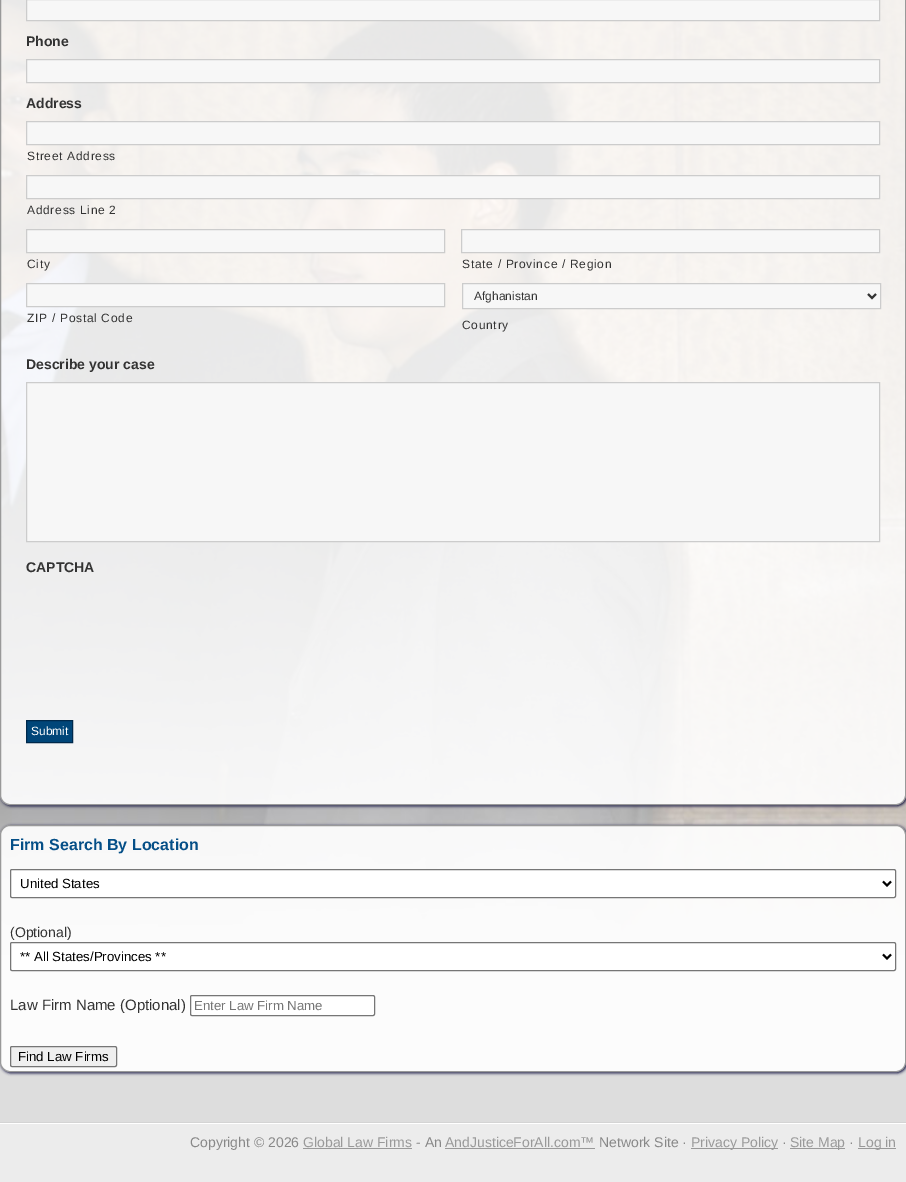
%!PS
<< /PageSize [906 1182] /PageUsesTransparency true >> setpagedevice
/rgb { 3 { 255 div 3 1 roll } repeat setrgbcolor } def
/font { [ exch dup neg 0 0 3 -1 roll 0 0 ] selectfont } def
/text { moveto show } def
/alpha { dup .setfillconstantalpha .setstrokeconstantalpha } def
/roundrect { 5 dict begin { /r /h /w /y /x } { exch def } forall
  x r add y moveto x w add y 2 copy h add r arct x w add y h add x 1 index r arct
  x y h add x y r arct x y 2 copy exch w add exch r arct closepath end } def
/shadow { 12 dict begin { /a /b /q /h /w /y /x } { exch def } forall gsave /was 0 def
  9 -2 -9 { dup b mul 4 div /e exch def 1 sub .425 mul 2.718 exch exp 1 add a .99 .min exch div /now exch def
    1 1 now sub 1 was sub div sub alpha /was now def
    w h .min e 2 mul add 0 gt { x e sub y e sub w e 2 mul add h e 2 mul add
      q e add b .6 mul add w h .min 2 div e add .min 0 .max roundrect fill } if } for grestore end } def
/picture { 5 dict begin { /h /w /y /x /name } { exch def } forall
  gsave x y translate w h scale
  w h 8 [w 0 0 h 0 0] name (r) file false 3 colorimage grestore end } def
0 .pushpdf14devicefilter
0 1182 translate 1 -1 scale
4 setmiterlimit
221 221 221 rgb
0 0 906 1182 rectfill
(img_01.rgb) 0 0 906 955 picture
gsave
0 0 moveto 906 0 rlineto 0 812 rlineto -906 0 rlineto closepath 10 -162 moveto 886 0 rlineto 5.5 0 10 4.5 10 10 rcurveto 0 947 rlineto 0 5.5 -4.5 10 -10 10 rcurveto -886 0 rlineto -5.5 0 -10 -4.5 -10 -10 rcurveto 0 -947 rlineto 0 -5.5 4.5 -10 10 -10 rcurveto closepath eoclip newpath
0 0 51 rgb
1 -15 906 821 10 1.5 1 shadow
grestore
0.9 alpha
255 255 255 rgb
0.5 -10.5 905 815 9.5 roundrect fill
1 alpha
153 153 153 rgb
0.5 -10.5 905 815 9.5 roundrect stroke
247 247 247 rgb
26.5 -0.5 moveto 853 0 rlineto 0 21 rlineto -853 0 rlineto closepath gsave fill grestore
204 204 204 rgb
stroke
247 247 247 rgb
26.5 59.5 moveto 853 0 rlineto 0 23 rlineto -853 0 rlineto closepath gsave fill grestore
204 204 204 rgb
stroke
247 247 247 rgb
26.5 121.5 moveto 853 0 rlineto 0 23 rlineto -853 0 rlineto closepath gsave fill grestore
204 204 204 rgb
stroke
247 247 247 rgb
26.5 175.5 moveto 853 0 rlineto 0 23 rlineto -853 0 rlineto closepath gsave fill grestore
204 204 204 rgb
stroke
247 247 247 rgb
26.5 229.5 moveto 418 0 rlineto 0 23 rlineto -418 0 rlineto closepath gsave fill grestore
204 204 204 rgb
stroke
247 247 247 rgb
461.5 229.5 moveto 418 0 rlineto 0 23 rlineto -418 0 rlineto closepath gsave fill grestore
204 204 204 rgb
stroke
247 247 247 rgb
26.5 283.5 moveto 418 0 rlineto 0 23 rlineto -418 0 rlineto closepath gsave fill grestore
204 204 204 rgb
stroke
247 247 247 rgb
462.5 283.5 moveto 418 0 rlineto 0 25 rlineto -418 0 rlineto closepath gsave fill grestore
204 204 204 rgb
stroke
51 51 51 rgb
2 setlinewidth
868 294 moveto 4 4 rlineto 4 -4 rlineto stroke
247 247 247 rgb
26.5 382.5 moveto 853 0 rlineto 0 159 rlineto -853 0 rlineto closepath gsave fill grestore
204 204 204 rgb
1 setlinewidth
stroke
0 70 121 rgb
26.5 720.5 moveto 46 0 rlineto 0 22 rlineto -46 0 rlineto closepath gsave fill grestore
0 41 75 rgb
stroke
gsave
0 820 moveto 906 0 rlineto 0 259 rlineto -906 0 rlineto closepath 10 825 moveto 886 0 rlineto 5.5 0 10 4.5 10 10 rcurveto 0 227 rlineto 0 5.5 -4.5 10 -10 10 rcurveto -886 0 rlineto -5.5 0 -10 -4.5 -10 -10 rcurveto 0 -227 rlineto 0 -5.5 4.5 -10 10 -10 rcurveto closepath eoclip newpath
0 0 51 rgb
1 826 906 247 10 1.5 1 shadow
grestore
0.9 alpha
255 255 255 rgb
0.5 825.5 905 246 9.5 roundrect fill
1 alpha
153 153 153 rgb
0.5 825.5 905 246 9.5 roundrect stroke
255 255 255 rgb
10.5 869.5 885 28 1.5 roundrect gsave fill grestore
118 118 118 rgb
stroke
0 0 0 rgb
2 setlinewidth
883 881.5 moveto 4 4 rlineto 4 -4 rlineto stroke
255 255 255 rgb
10.5 942.5 885 28 1.5 roundrect gsave fill grestore
118 118 118 rgb
1 setlinewidth
stroke
0 0 0 rgb
2 setlinewidth
883 954.5 moveto 4 4 rlineto 4 -4 rlineto stroke
255 255 255 rgb
190.5 995.5 184 20 1.5 roundrect gsave fill grestore
118 118 118 rgb
1 setlinewidth
stroke
239 239 239 rgb
10.5 1046.5 106 20 1.5 roundrect gsave fill grestore
118 118 118 rgb
stroke
236 236 236 rgb
0 1124 906 58 rectfill
(img_02.rgb) 0 1122 906 2 picture
153 153 153 rgb
303 1148 109 1 rectfill
445 1148 150 1 rectfill
691 1148 87 1 rectfill
790 1148 55 1 rectfill
858 1148 38 1 rectfill
/LiberationSans-Bold 14 font
51 51 51 rgb
(Phone) 26 46 text
(Address) 26 108 text
/LiberationSans-Regular 12 font
27 160 moveto 0.7 0 (Street Address) ashow
27 214 moveto 0.7 0 (Address Line 2) ashow
27 268 moveto 0.7 0 (City) ashow
462 268 moveto 0.7 0 (State / Province / Region) ashow
27 322 moveto 0.7 0 (ZIP / Postal Code) ashow
(Afghanistan) 474 300 text
462 329 moveto 0.7 0 (Country) ashow
/LiberationSans-Bold 14 font
(Describe your case) 26 369 text
(CAPTCHA) 26 572 text
/LiberationSans-Regular 12 font
255 255 255 rgb
(Submit) 31 735 text
/LiberationSans-Bold 16 font
5 79 135 rgb
(Firm Search By Location) 10 850 text
/LiberationSans-Regular 13.25 font
0 0 0 rgb
(United States) 20 888 text
/LiberationSans-Regular 14 font
51 51 51 rgb
(\(Optional\)) 10 937 text
/LiberationSans-Regular 13.25 font
0 0 0 rgb
(** All States/Provinces **) 20 961 text
/LiberationSans-Regular 15 font
51 51 51 rgb
(Law Firm Name \(Optional\)) 10 1010 text
/LiberationSans-Regular 13.25 font
117 117 117 rgb
(Enter Law Firm Name) 194 1010 text
0 0 0 rgb
(Find Law Firms) 18 1061 text
/LiberationSans-Regular 14 font
136 136 136 rgb
(Copyright © 2026) 190 1147 text
153 153 153 rgb
(Global Law Firms) 303 1147 text
136 136 136 rgb
(- An) 416 1147 text
153 153 153 rgb
(AndJusticeForAll.com™) 445 1147 text
136 136 136 rgb
(Network Site ·) 599 1147 text
153 153 153 rgb
(Privacy Policy) 691 1147 text
136 136 136 rgb
(·) 782 1147 text
153 153 153 rgb
(Site Map) 790 1147 text
136 136 136 rgb
(·) 849 1147 text
153 153 153 rgb
(Log in) 858 1147 text
.poppdf14devicefilter showpage
